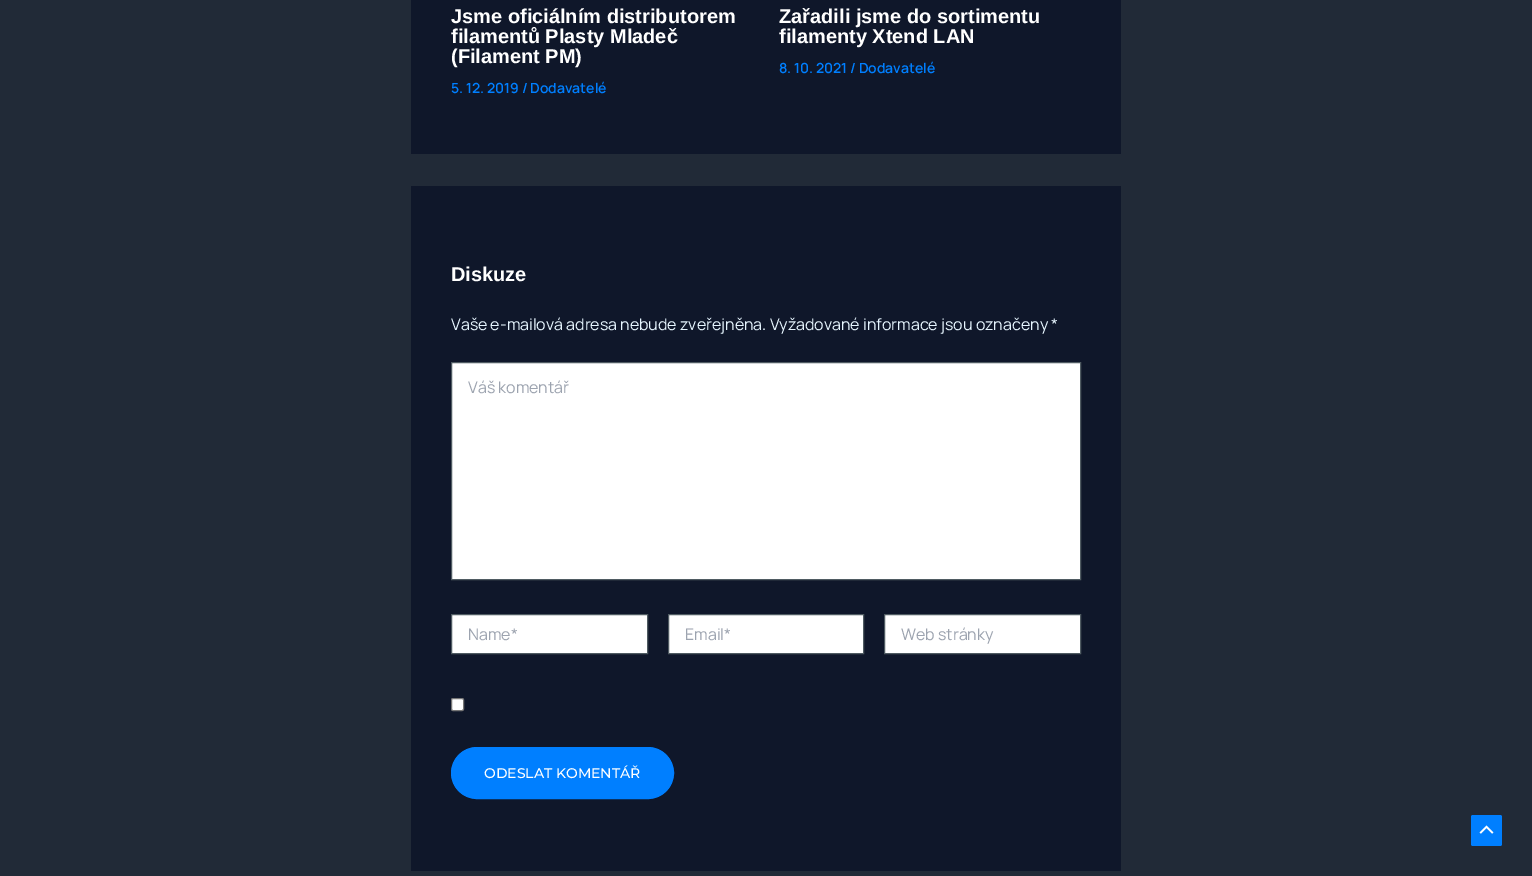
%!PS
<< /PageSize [1532 876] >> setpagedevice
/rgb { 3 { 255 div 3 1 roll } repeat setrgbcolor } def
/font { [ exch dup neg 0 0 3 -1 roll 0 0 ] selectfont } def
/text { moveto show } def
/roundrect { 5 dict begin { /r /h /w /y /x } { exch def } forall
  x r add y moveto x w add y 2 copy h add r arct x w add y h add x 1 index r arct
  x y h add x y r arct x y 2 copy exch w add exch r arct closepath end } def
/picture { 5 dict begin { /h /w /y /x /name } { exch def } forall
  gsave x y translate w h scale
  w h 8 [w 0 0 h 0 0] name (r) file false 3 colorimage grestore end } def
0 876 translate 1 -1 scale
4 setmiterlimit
33 42 55 rgb
0 0 1532 876 rectfill
15 23 42 rgb
411 0 710 154 rectfill
411 186 710 685 rectfill
255 255 255 rgb
451.5 362.5 moveto 629 0 rlineto 0 217 rlineto -629 0 rlineto closepath gsave fill grestore
79 91 98 rgb
stroke
255 255 255 rgb
451.5 614.5 moveto 196 0 rlineto 0 39 rlineto -196 0 rlineto closepath gsave fill grestore
79 91 98 rgb
stroke
255 255 255 rgb
668.5 614.5 moveto 195 0 rlineto 0 39 rlineto -195 0 rlineto closepath gsave fill grestore
79 91 98 rgb
stroke
255 255 255 rgb
884.5 614.5 moveto 196 0 rlineto 0 39 rlineto -196 0 rlineto closepath gsave fill grestore
79 91 98 rgb
stroke
255 255 255 rgb
451.5 698.5 12 12 1.5 roundrect gsave fill grestore
118 118 118 rgb
stroke
0 127 255 rgb
451.5 747.5 222 51 25.5 roundrect gsave fill grestore
stroke
1471 815 31 31 2 roundrect fill
(img_01.rgb) 1479 825 15 9 picture
/LiberationSans-Bold 20 font
255 255 255 rgb
(Jsme oficiálním distributorem) 451 23 text
(filamentů Plasty Mladeč) 451 43 text
(\(Filament PM\)) 451 63 text
/Manrope-SemiBold 14 font
0 127 255 rgb
(5. 12. 2019 / Dodavatelé) 451 93 text
/LiberationSans-Bold 20 font
255 255 255 rgb
(Zařadili jsme do sortimentu) 779 23 text
(filamenty Xtend LAN) 779 43 text
/Manrope-SemiBold 14 font
0 127 255 rgb
(8. 10. 2021 / Dodavatelé) 779 73 text
/LiberationSans-Bold 20 font
255 255 255 rgb
(Diskuze) 451 281 text
/Manrope-Regular 16 font
231 246 255 rgb
(Vaše e-mailová adresa nebude zveřejněna. Vyžadované informace jsou označeny *) 451 330 text
156 163 175 rgb
(Váš komentář) 468 393 text
(Name*) 468 640 text
(Email*) 685 640 text
(Web stránky) 901 640 text
/Montserrat-Thin 14 font
255 255 255 rgb
(ODESLAT KOMENTÁŘ) 484 778 text
showpage
